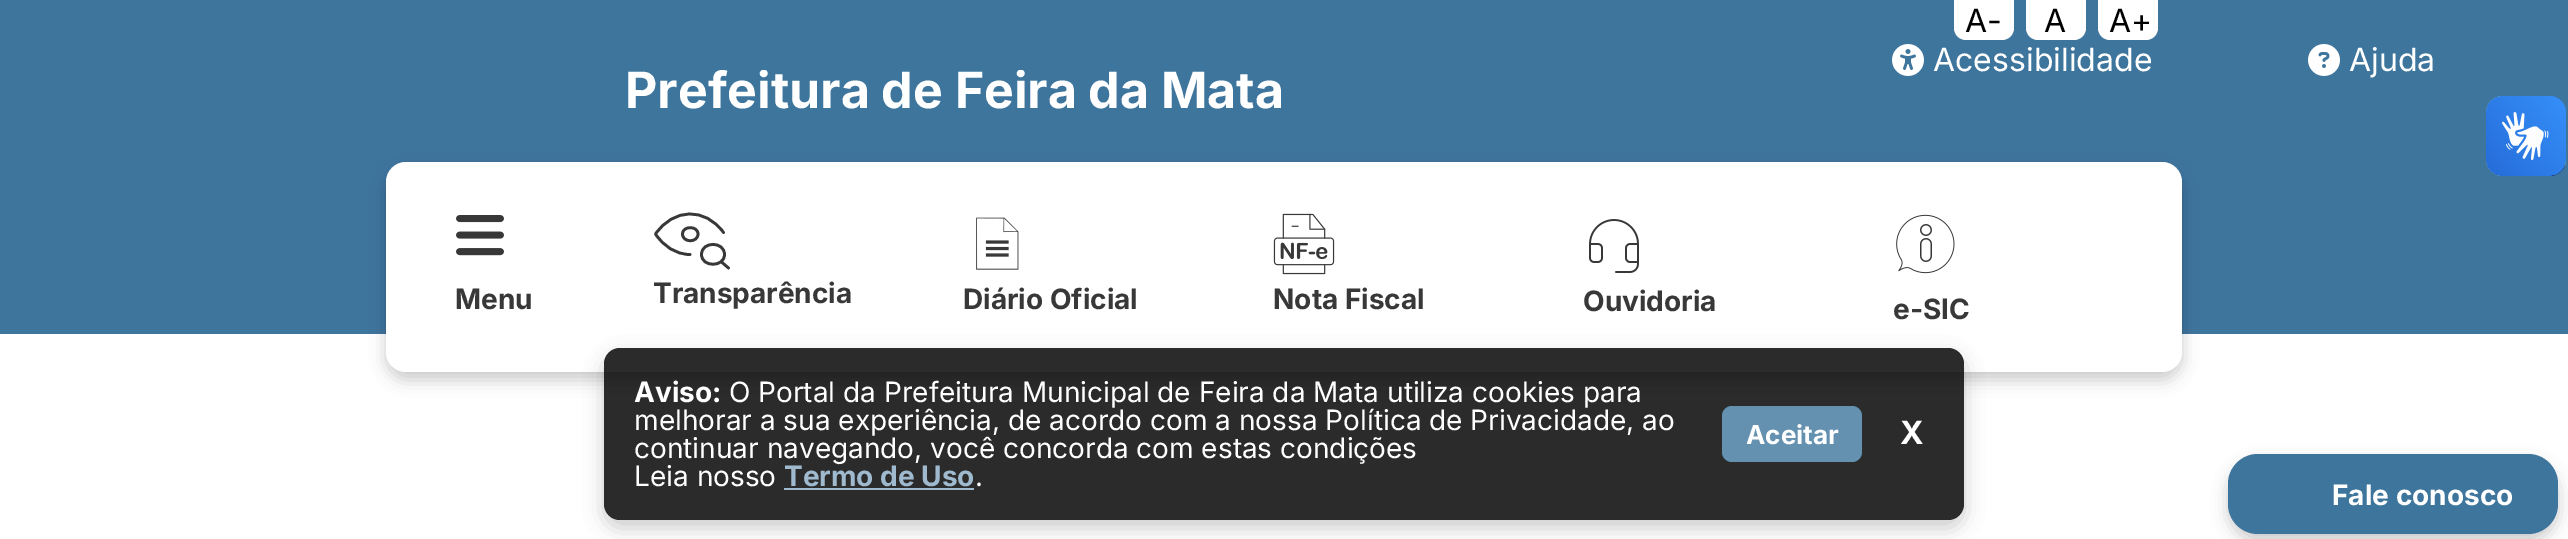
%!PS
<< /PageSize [2568 539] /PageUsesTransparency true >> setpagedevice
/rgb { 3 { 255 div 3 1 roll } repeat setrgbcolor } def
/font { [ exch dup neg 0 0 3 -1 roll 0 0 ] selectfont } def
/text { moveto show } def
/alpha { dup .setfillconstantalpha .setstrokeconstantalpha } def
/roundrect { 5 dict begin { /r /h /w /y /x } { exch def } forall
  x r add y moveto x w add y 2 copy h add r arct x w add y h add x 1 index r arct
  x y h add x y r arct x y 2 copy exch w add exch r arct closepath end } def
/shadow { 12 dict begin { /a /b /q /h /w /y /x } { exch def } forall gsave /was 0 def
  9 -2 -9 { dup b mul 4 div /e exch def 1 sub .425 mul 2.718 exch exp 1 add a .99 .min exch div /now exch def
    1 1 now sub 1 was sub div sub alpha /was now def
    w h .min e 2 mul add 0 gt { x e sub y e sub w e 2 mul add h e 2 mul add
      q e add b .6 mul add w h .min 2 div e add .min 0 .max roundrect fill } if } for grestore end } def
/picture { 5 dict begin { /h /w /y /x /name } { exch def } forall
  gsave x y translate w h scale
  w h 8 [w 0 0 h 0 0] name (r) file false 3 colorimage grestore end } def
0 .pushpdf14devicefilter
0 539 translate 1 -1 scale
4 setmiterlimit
255 255 255 rgb
0 0 2568 539 rectfill
62 117 157 rgb
0 70 2568 264 rectfill
0 0 0 rgb
386 170 1796 210 20 8 0.2 shadow
255 255 255 rgb
386 162 1796 210 20 roundrect fill
(img_03.rgb) 456 215 48 41 picture
56 56 56 rgb
2.7 setlinewidth
1 setlinecap
1 setlinejoin
682.5 234 moveto 0 9 15.5 9 15.5 0 rcurveto 0 -8.5 -15.5 -8.5 -15.5 0 rcurveto closepath stroke
690 254.5 moveto -14.5 0 -26.5 -8.5 -34.5 -20.5 rcurveto 18 -26 49.5 -27 68 -1.5 rcurveto 721.5 262 moveto 7 6 rlineto 701.5 254.5 moveto 0 13 23 13 23 0 rcurveto 0 -13.5 -23 -13.5 -23 0 rcurveto closepath stroke
(img_04.rgb) 976 217 43 53 picture
(img_05.rgb) 1273 213 62 62 picture
(img_06.rgb) 1589 219 50 54 picture
(img_07.rgb) 1896 214 59 60 picture
0 0 0 rgb
2228 462 330 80 30 8 0.2 shadow
62 117 157 rgb
2228 454 330 80 30 roundrect fill
(img_08.rgb) 2486 96 80 80 picture
(img_09.rgb) 2486 96 80 80 picture
gsave
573 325 moveto 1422 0 rlineto 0 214 rlineto -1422 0 rlineto closepath 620 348 moveto 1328 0 rlineto 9 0 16 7 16 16 rcurveto 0 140 rlineto 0 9 -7 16 -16 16 rcurveto -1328 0 rlineto -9 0 -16 -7 -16 -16 rcurveto 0 -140 rlineto 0 -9 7 -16 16 -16 rcurveto closepath eoclip newpath
0 0 0 rgb
604 356 1360 172 16 10 0.2 shadow
grestore
0.83 alpha
0 0 0 rgb
604 348 1360 172 16 roundrect fill
1 alpha
159 186 206 rgb
784 488 190 2 rectfill
101 145 177 rgb
1722 406 140 56 10 roundrect fill
/Inter-Bold 50 font
255 255 255 rgb
(Prefeitura de Feira da Mata) 625 108 text
62 117 157 rgb
0 0 2568 70 rectfill
255 255 255 rgb
2098 0 moveto 60 0 rlineto 0 28 rlineto 0 6.5 -5.5 12 -12 12 rcurveto -36 0 rlineto -6.5 0 -12 -5.5 -12 -12 rcurveto closepath fill
/Inter-Regular 32 font
0 0 0 rgb
(A+) 2109 32 text
255 255 255 rgb
2026 0 moveto 60 0 rlineto 0 28 rlineto 0 6.5 -5.5 12 -12 12 rcurveto -36 0 rlineto -6.5 0 -12 -5.5 -12 -12 rcurveto closepath fill
0 0 0 rgb
(A) 2044 32 text
255 255 255 rgb
1954 0 moveto 60 0 rlineto 0 28 rlineto 0 6.5 -5.5 12 -12 12 rcurveto -36 0 rlineto -6.5 0 -12 -5.5 -12 -12 rcurveto closepath fill
0 0 0 rgb
(A-) 1965 32 text
255 255 255 rgb
(Ajuda) 2349 71 text
(img_02.rgb) 2308 44 32 32 picture
(Acessibilidade) 1933 71 text
(img_01.rgb) 1892 44 32 32 picture
/Inter-Bold 28 font
56 56 56 rgb
(Menu) 455 309 text
(Transparência) 653 303 text
(Diário Oficial) 963 309 text
(Nota Fiscal) 1273 309 text
(Ouvidoria) 1583 311 text
(e-SIC) 1893 319 text
255 255 255 rgb
(Fale conosco) 2332 505 text
(Aviso:) 634 402 text
/Inter-Regular 28 font
(O Portal da Prefeitura Municipal de Feira da Mata utiliza cookies para) 729 402 text
(melhorar a sua experiência, de acordo com a nossa Política de Privacidade, ao) 634 430 text
(continuar navegando, você concorda com estas condições) 634 458 text
(Leia nosso) 634 486 text
/Inter-Bold 28 font
159 186 206 rgb
(Termo de Uso) 784 486 text
/Inter-Regular 28 font
255 255 255 rgb
(.) 975 486 text
/Inter-Bold 26 font
(Aceitar) 1746 444 text
/Inter-Bold 32 font
(X) 1900 444 text
.poppdf14devicefilter showpage
